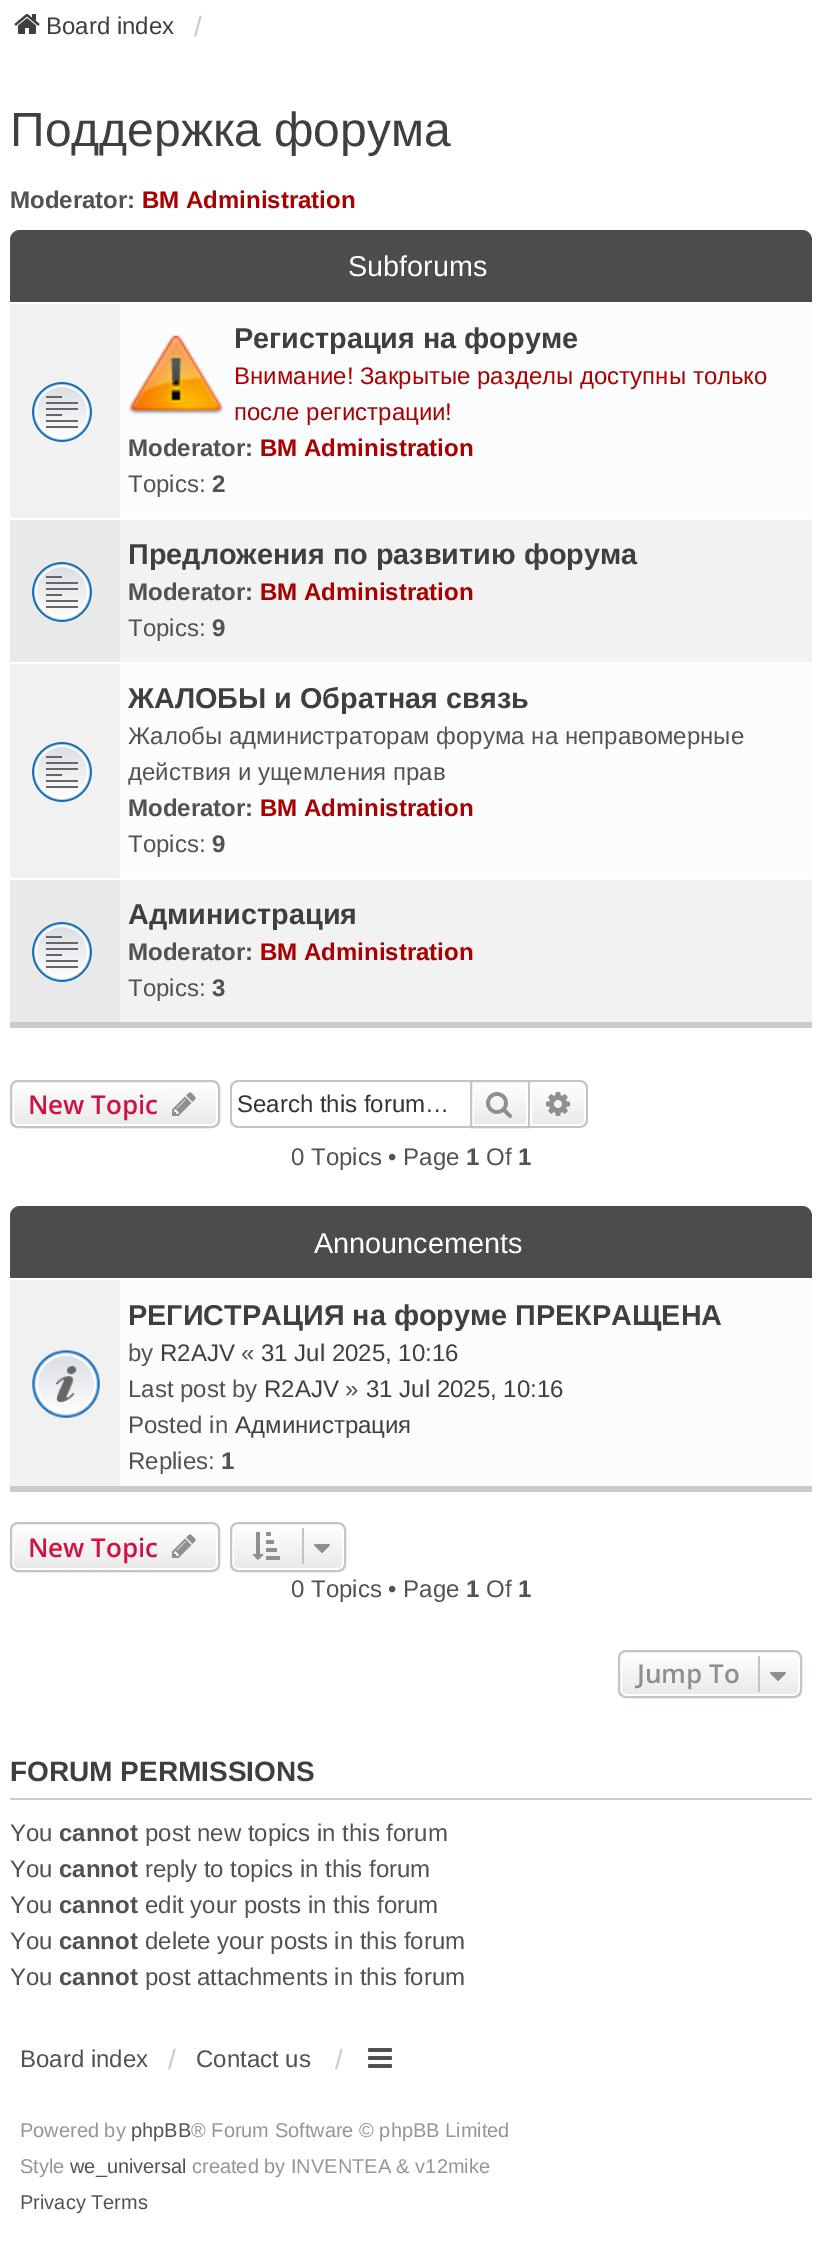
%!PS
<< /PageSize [822 2241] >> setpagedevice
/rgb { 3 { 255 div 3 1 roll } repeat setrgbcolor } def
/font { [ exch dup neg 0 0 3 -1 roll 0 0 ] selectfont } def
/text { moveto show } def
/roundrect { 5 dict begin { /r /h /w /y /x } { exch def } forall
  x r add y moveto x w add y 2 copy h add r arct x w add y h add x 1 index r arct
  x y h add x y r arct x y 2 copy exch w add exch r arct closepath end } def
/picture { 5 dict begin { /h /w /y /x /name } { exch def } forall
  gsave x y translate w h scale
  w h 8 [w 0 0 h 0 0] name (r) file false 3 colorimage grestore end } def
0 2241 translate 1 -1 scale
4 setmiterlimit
255 255 255 rgb
0 0 822 2241 rectfill
(img_01.rgb) 14 14 26 20 picture
76 76 76 rgb
20 230 moveto 782 0 rlineto 5.5 0 10 4.5 10 10 rcurveto 0 788 rlineto -802 0 rlineto 0 -788 rlineto 0 -5.5 4.5 -10 10 -10 rcurveto closepath fill
202 202 202 rgb
10 1022 802 6 rectfill
250 252 254 rgb
120 304 692 574 rectfill
255 255 255 rgb
10 302 802 2 rectfill
241 241 241 rgb
10 304 110 214 rectfill
(img_02.rgb) 32 382 60 60 picture
(img_03.rgb) 128 335 96 80 picture
242 242 242 rgb
120 520 692 142 rectfill
255 255 255 rgb
10 518 802 2 rectfill
233 233 233 rgb
10 520 110 142 rectfill
(img_04.rgb) 32 562 60 60 picture
255 255 255 rgb
10 662 802 2 rectfill
241 241 241 rgb
10 664 110 214 rectfill
(img_02.rgb) 32 742 60 60 picture
242 242 242 rgb
120 880 692 142 rectfill
255 255 255 rgb
10 878 802 2 rectfill
233 233 233 rgb
10 880 110 142 rectfill
(img_04.rgb) 32 922 60 60 picture
gsave
10 1080 210 48 8 roundrect clip newpath
gsave 10 1082 moveto 210 0 rlineto 0 44 rlineto -210 0 rlineto closepath clip newpath
<< /ShadingType 2 /ColorSpace /DeviceRGB /Coords [115 1082 115 1126] /Extend [true true] /Function << /FunctionType 2 /Domain [0 1] /C0 [1 1 1] /C1 [0.914 0.914 0.914] /N 1 >> >> shfill grestore
grestore
255 255 255 rgb
2 setlinewidth
13 1083 204 42 5 roundrect stroke
199 195 191 rgb
11 1081 208 46 7 roundrect stroke
(img_05.rgb) 172 1092 24 24 picture
238 1080 moveto 232 0 rlineto 0 48 rlineto -232 0 rlineto -4 0 -8 -4 -8 -8 rcurveto 0 -32 rlineto 0 -4 4 -8 8 -8 rcurveto closepath 238 1082 moveto 232 0 rlineto 0 44 rlineto -232 0 rlineto -3 0 -6 -3 -6 -6 rcurveto 0 -32 rlineto 0 -3 3 -6 6 -6 rcurveto closepath eofill
gsave 474 1087 moveto 52 0 rlineto 0 37 rlineto -52 0 rlineto closepath clip newpath
<< /ShadingType 2 /ColorSpace /DeviceRGB /Coords [500 1082 500 1126] /Extend [true true] /Function << /FunctionType 2 /Domain [0 1] /C0 [1 1 1] /C1 [0.914 0.914 0.914] /N 1 >> >> shfill grestore
471 1081 58 46 rectstroke
(img_06.rgb) 486 1092 26 26 picture
gsave 531 1083 moveto 49 0 rlineto 3 0 5 2 5 5 rcurveto 0 32 rlineto 0 3 -2 5 -5 5 rcurveto -49 0 rlineto closepath clip newpath
<< /ShadingType 2 /ColorSpace /DeviceRGB /Coords [558 1082 558 1126] /Extend [true true] /Function << /FunctionType 2 /Domain [0 1] /C0 [1 1 1] /C1 [0.914 0.914 0.914] /N 1 >> >> shfill grestore
255 255 255 rgb
531 1083 moveto 49 0 rlineto 3 0 5 2 5 5 rcurveto 0 32 rlineto 0 3 -2 5 -5 5 rcurveto -49 0 rlineto closepath stroke
199 195 191 rgb
530 1080 moveto 50 0 rlineto 4 0 8 4 8 8 rcurveto 0 32 rlineto 0 4 -4 8 -8 8 rcurveto -50 0 rlineto closepath 530 1082 moveto 50 0 rlineto 3 0 6 3 6 6 rcurveto 0 32 rlineto 0 3 -3 6 -6 6 rcurveto -50 0 rlineto closepath eofill
(img_07.rgb) 546 1092 24 24 picture
76 76 76 rgb
20 1206 moveto 782 0 rlineto 5.5 0 10 4.5 10 10 rcurveto 0 276 rlineto -802 0 rlineto 0 -276 rlineto 0 -5.5 4.5 -10 10 -10 rcurveto closepath fill
202 202 202 rgb
10 1486 802 6 rectfill
250 252 254 rgb
120 1280 692 206 rectfill
255 255 255 rgb
10 1278 802 2 rectfill
241 241 241 rgb
10 1280 110 206 rectfill
(img_08.rgb) 32 1350 68 68 picture
gsave
10 1522 210 50 8 roundrect clip newpath
gsave 10 1524 moveto 210 0 rlineto 0 46 rlineto -210 0 rlineto closepath clip newpath
<< /ShadingType 2 /ColorSpace /DeviceRGB /Coords [115 1524 115 1570] /Extend [true true] /Function << /FunctionType 2 /Domain [0 1] /C0 [1 1 1] /C1 [0.914 0.914 0.914] /N 1 >> >> shfill grestore
grestore
255 255 255 rgb
13 1525 204 44 5 roundrect stroke
199 195 191 rgb
11 1523 208 48 7 roundrect stroke
(img_09.rgb) 172 1534 24 24 picture
gsave
230 1522 116 50 8 roundrect clip newpath
gsave 230 1524 moveto 116 0 rlineto 0 46 rlineto -116 0 rlineto closepath clip newpath
<< /ShadingType 2 /ColorSpace /DeviceRGB /Coords [288 1524 288 1570] /Extend [true true] /Function << /FunctionType 2 /Domain [0 1] /C0 [1 1 1] /C1 [0.914 0.914 0.914] /N 1 >> >> shfill grestore
grestore
255 255 255 rgb
233 1525 110 44 5 roundrect stroke
199 195 191 rgb
231 1523 114 48 7 roundrect stroke
(img_10.rgb) 252 1532 28 28 picture
302 1528 2 36 rectfill
(img_11.rgb) 314 1544 16 9 picture
gsave
618 1650 184 48 8 roundrect clip newpath
gsave 618 1652 moveto 184 0 rlineto 0 44 rlineto -184 0 rlineto closepath clip newpath
<< /ShadingType 2 /ColorSpace /DeviceRGB /Coords [710 1652 710 1696] /Extend [true true] /Function << /FunctionType 2 /Domain [0 1] /C0 [1 1 1] /C1 [0.914 0.914 0.914] /N 1 >> >> shfill grestore
grestore
255 255 255 rgb
621 1653 178 42 5 roundrect stroke
199 195 191 rgb
619 1651 182 46 7 roundrect stroke
758 1656 2 36 rectfill
(img_12.rgb) 770 1672 16 9 picture
204 204 204 rgb
10 1798 802 2 rectfill
(img_13.rgb) 368 2048 24 20 picture
/LiberationSans-Regular 24 font
63 63 63 rgb
(Board index) 46 34 text
/LiberationSans-Regular 28 font
202 202 202 rgb
(/) 194 36 text
/LiberationSans-Regular 48 font
63 63 63 rgb
(Поддержка форума) 10 146 text
/LiberationSans-Bold 24 font
82 82 82 rgb
(Moderator:) 10 208 text
170 0 0 rgb
(BM Administration) 142 208 text
/LiberationSans-Regular 28.8 font
255 255 255 rgb
(Subforums) 348 276 text
/LiberationSans-Bold 28.8 font
63 63 63 rgb
(Регистрация на форуме) 234 348 text
/LiberationSans-Regular 24 font
170 0 0 rgb
(Внимание! Закрытые разделы доступны только) 234 384 text
(после регистрации!) 234 420 text
/LiberationSans-Bold 24 font
82 82 82 rgb
(Moderator:) 128 456 text
170 0 0 rgb
(BM Administration) 260 456 text
/LiberationSans-Regular 24 font
82 82 82 rgb
(Topics:) 128 492 text
/LiberationSans-Bold 24 font
(2) 212 492 text
/LiberationSans-Bold 28.8 font
63 63 63 rgb
(Предложения по развитию форума) 128 564 text
/LiberationSans-Bold 24 font
82 82 82 rgb
(Moderator:) 128 600 text
170 0 0 rgb
(BM Administration) 260 600 text
/LiberationSans-Regular 24 font
82 82 82 rgb
(Topics:) 128 636 text
/LiberationSans-Bold 24 font
(9) 212 636 text
/LiberationSans-Bold 28.8 font
63 63 63 rgb
(ЖАЛОБЫ и Обратная связь) 128 708 text
/LiberationSans-Regular 24 font
82 82 82 rgb
(Жалобы администраторам форума на неправомерные) 128 744 text
(действия и ущемления прав) 128 780 text
/LiberationSans-Bold 24 font
(Moderator:) 128 816 text
170 0 0 rgb
(BM Administration) 260 816 text
/LiberationSans-Regular 24 font
82 82 82 rgb
(Topics:) 128 852 text
/LiberationSans-Bold 24 font
(9) 212 852 text
/LiberationSans-Bold 28.8 font
63 63 63 rgb
(Администрация) 128 924 text
/LiberationSans-Bold 24 font
82 82 82 rgb
(Moderator:) 128 960 text
170 0 0 rgb
(BM Administration) 260 960 text
/LiberationSans-Regular 24 font
82 82 82 rgb
(Topics:) 128 996 text
/LiberationSans-Bold 24 font
(3) 212 996 text
/OpenSans-SemiBold 26 font
211 17 65 rgb
(New Topic) 28 1114 text
/LiberationSans-Regular 24 font
51 51 51 rgb
(Search this forum…) 237 1112 text
82 82 82 rgb
(0 Topics • Page) 291 1165 text
/LiberationSans-Bold 24 font
(1) 466 1165 text
/LiberationSans-Regular 24 font
(Of) 486 1165 text
/LiberationSans-Bold 24 font
(1) 518 1165 text
/LiberationSans-Regular 28.8 font
255 255 255 rgb
(Announcements) 314 1253 text
/LiberationSans-Bold 28.8 font
63 63 63 rgb
(РЕГИСТРАЦИЯ на форуме ПРЕКРАЩЕНА) 128 1325 text
/LiberationSans-Regular 24 font
82 82 82 rgb
(by) 128 1361 text
63 63 63 rgb
(R2AJV) 160 1361 text
82 82 82 rgb
(«) 241 1361 text
63 63 63 rgb
(31 Jul 2025, 10:16) 261 1361 text
82 82 82 rgb
(Last post by) 128 1397 text
63 63 63 rgb
(R2AJV) 264 1397 text
82 82 82 rgb
(») 345 1397 text
63 63 63 rgb
(31 Jul 2025, 10:16) 366 1397 text
82 82 82 rgb
(Posted in) 128 1433 text
63 63 63 rgb
(Администрация) 235 1433 text
82 82 82 rgb
(Replies:) 128 1469 text
/LiberationSans-Bold 24 font
(1) 221 1469 text
/OpenSans-SemiBold 26 font
211 17 65 rgb
(New Topic) 28 1557 text
/LiberationSans-Regular 24 font
82 82 82 rgb
(0 Topics • Page) 291 1597 text
/LiberationSans-Bold 24 font
(1) 466 1597 text
/LiberationSans-Regular 24 font
(Of) 486 1597 text
/LiberationSans-Bold 24 font
(1) 518 1597 text
/OpenSans-SemiBold 26 font
143 143 143 rgb
(Jump To) 637 1683 text
/LiberationSans-Bold 28 font
63 63 63 rgb
(FORUM PERMISSIONS) 10 1781 text
/LiberationSans-Regular 24 font
82 82 82 rgb
(You) 10 1841 text
/LiberationSans-Bold 24 font
(cannot) 59 1841 text
/LiberationSans-Regular 24 font
(post new topics in this forum) 145 1841 text
(You) 10 1877 text
/LiberationSans-Bold 24 font
(cannot) 59 1877 text
/LiberationSans-Regular 24 font
(reply to topics in this forum) 145 1877 text
(You) 10 1913 text
/LiberationSans-Bold 24 font
(cannot) 59 1913 text
/LiberationSans-Regular 24 font
(edit your posts in this forum) 145 1913 text
(You) 10 1949 text
/LiberationSans-Bold 24 font
(cannot) 59 1949 text
/LiberationSans-Regular 24 font
(delete your posts in this forum) 145 1949 text
(You) 10 1985 text
/LiberationSans-Bold 24 font
(cannot) 59 1985 text
/LiberationSans-Regular 24 font
(post attachments in this forum) 145 1985 text
(Board index) 20 2067 text
/LiberationSans-Regular 28 font
202 202 202 rgb
(/) 168 2069 text
/LiberationSans-Regular 24 font
82 82 82 rgb
(Contact us) 196 2067 text
/LiberationSans-Regular 28 font
202 202 202 rgb
(/) 335 2069 text
/LiberationSans-Regular 20 font
149 149 149 rgb
(Powered by) 20 2137 text
82 82 82 rgb
(phpBB) 131 2137 text
149 149 149 rgb
(® Forum Software © phpBB Limited) 191 2137 text
(Style) 20 2173 text
82 82 82 rgb
(we_universal) 70 2173 text
149 149 149 rgb
(created by INVENTEA & v12mike) 192 2173 text
82 82 82 rgb
(Privacy Terms) 20 2209 text
showpage
